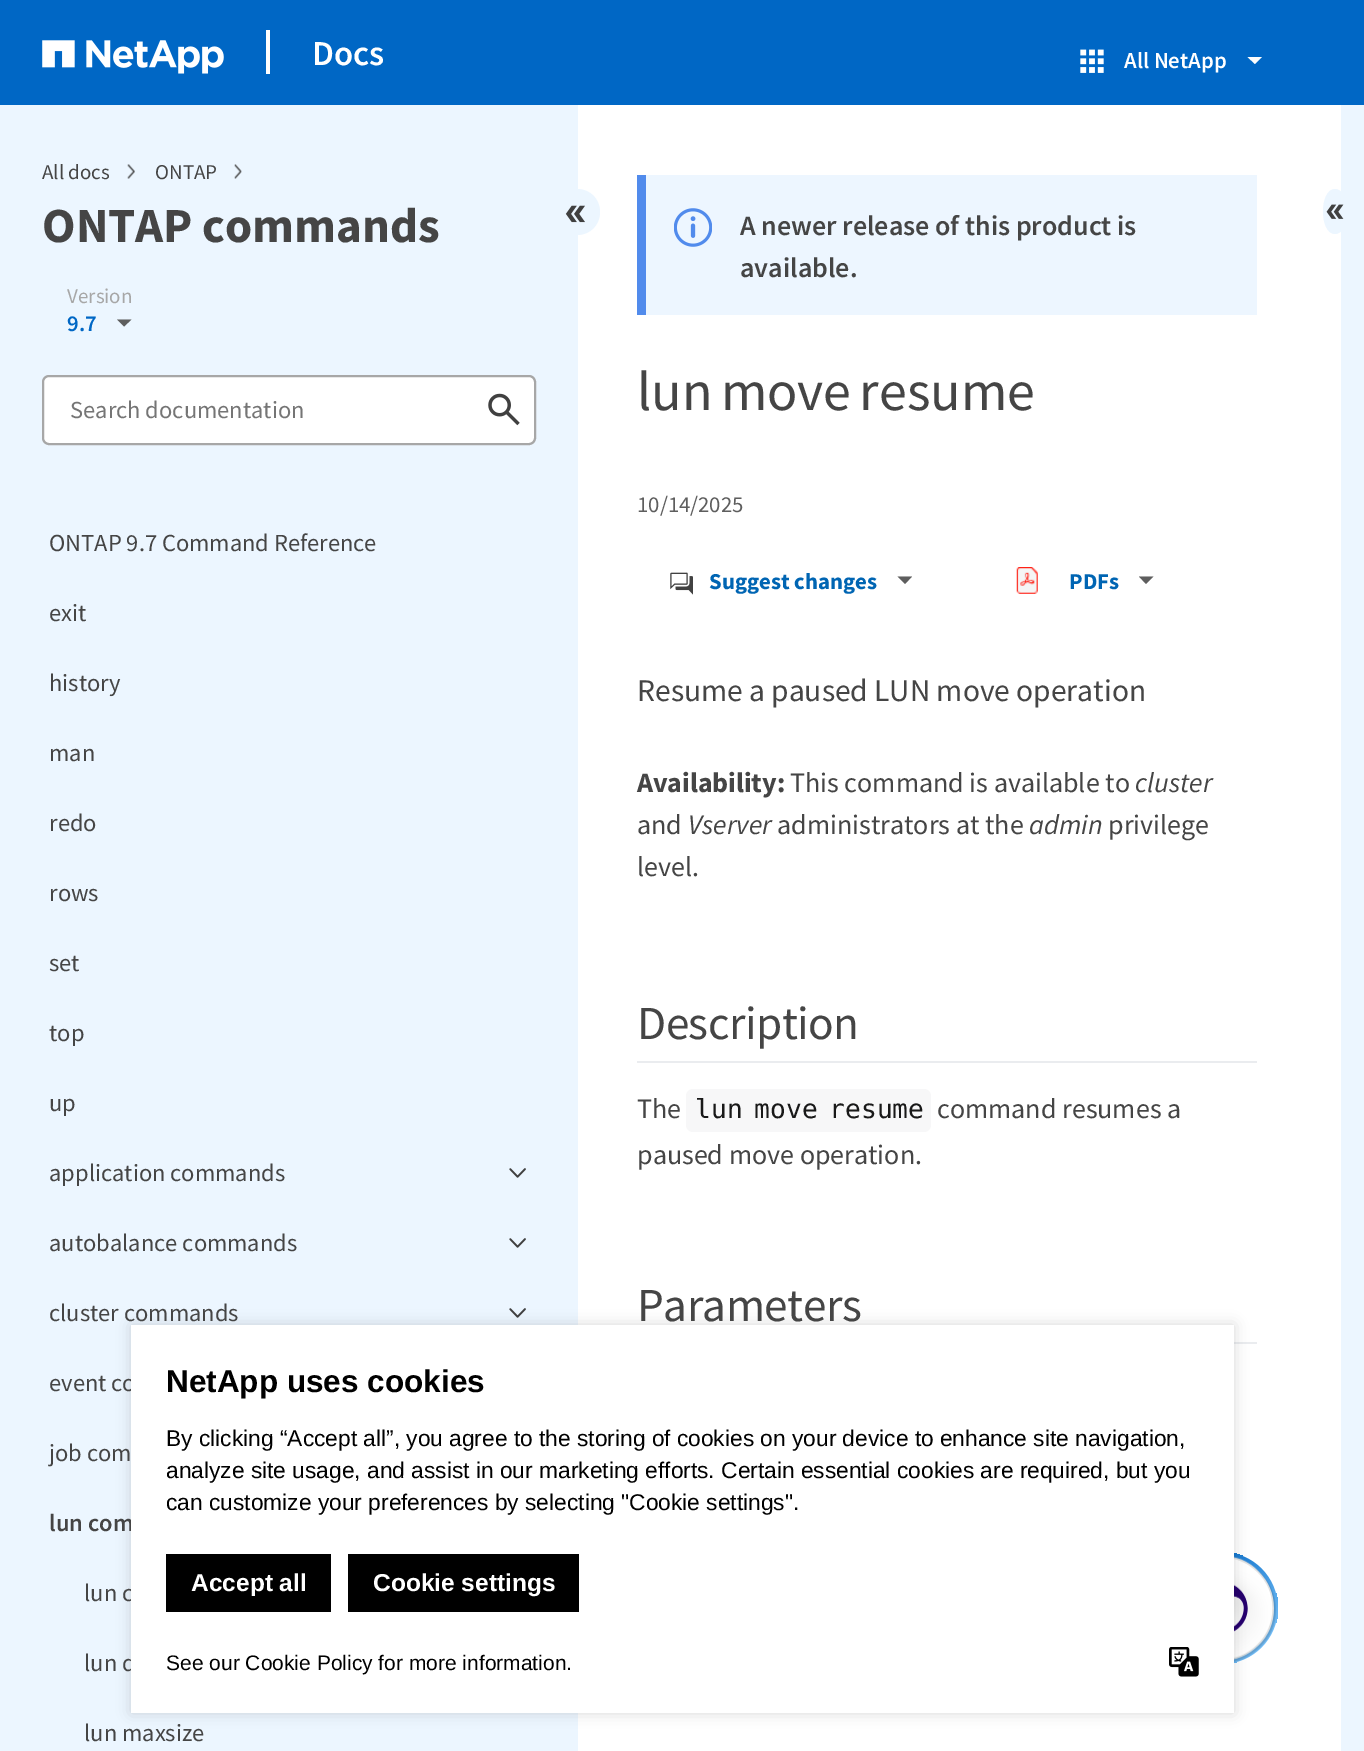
%!PS
<< /PageSize [1364 1751] /PageUsesTransparency true >> setpagedevice
/rgb { 3 { 255 div 3 1 roll } repeat setrgbcolor } def
/font { [ exch dup neg 0 0 3 -1 roll 0 0 ] selectfont } def
/text { moveto show } def
/alpha { dup .setfillconstantalpha .setstrokeconstantalpha } def
/circle { newpath 0 360 arc closepath } def
/roundrect { 5 dict begin { /r /h /w /y /x } { exch def } forall
  x r add y moveto x w add y 2 copy h add r arct x w add y h add x 1 index r arct
  x y h add x y r arct x y 2 copy exch w add exch r arct closepath end } def
/shadow { 12 dict begin { /a /b /q /h /w /y /x } { exch def } forall gsave /was 0 def
  9 -2 -9 { dup b mul 4 div /e exch def 1 sub .425 mul 2.718 exch exp 1 add a .99 .min exch div /now exch def
    1 1 now sub 1 was sub div sub alpha /was now def
    w h .min e 2 mul add 0 gt { x e sub y e sub w e 2 mul add h e 2 mul add
      q e add b .6 mul add w h .min 2 div e add .min 0 .max roundrect fill } if } for grestore end } def
/picture { 5 dict begin { /h /w /y /x /name } { exch def } forall
  gsave x y translate w h scale
  w h 8 [w 0 0 h 0 0] name (r) file false 3 colorimage grestore end } def
0 .pushpdf14devicefilter
0 1751 translate 1 -1 scale
4 setmiterlimit
255 255 255 rgb
0 0 1364 1751 rectfill
0 103 197 rgb
0 0 1364 105 rectfill
(img_01.rgb) 42 40 182 34 picture
255 255 255 rgb
266 30 4 44 rectfill
(img_02.rgb) 1080 49 24 24 picture
253 253 253 rgb
1255 64 moveto -7.5 -7 rlineto 14.5 0 rlineto closepath fill
236 246 255 rgb
0 105 578 1646 rectfill
(img_03.rgb) 127 164 8 15 picture
(img_04.rgb) 234 164 8 15 picture
555 189 45 46 22.5 roundrect fill
(img_05.rgb) 565 205 20 18 picture
94 94 94 rgb
124 326.5 moveto -7 -7 rlineto 14.5 0 rlineto closepath fill
255 255 255 rgb
43 376 492 68 6 roundrect gsave fill grestore
167 167 167 rgb
2 setlinewidth
stroke
(img_06.rgb) 488 393 32 33 picture
(img_07.rgb) 509 1168 17 10 picture
(img_07.rgb) 509 1238 17 10 picture
(img_07.rgb) 509 1308 17 10 picture
237 246 255 rgb
646 175 611 140 rectfill
81 139 236 rgb
637 175 9 140 rectfill
(img_08.rgb) 674 208 38 39 picture
(img_09.rgb) 670 572 23 23 picture
94 94 94 rgb
905 584 moveto -7.5 -7.5 rlineto 14.5 0 rlineto closepath fill
(img_10.rgb) 1016 567 22 27 picture
1146 584 moveto -7 -7.5 rlineto 14.5 0 rlineto closepath fill
234 236 239 rgb
637 1061 620 2 rectfill
247 247 248 rgb
686 1089 245 43 7 roundrect fill
234 236 239 rgb
1234 1342 23 2 rectfill
236 246 255 rgb
1341 105 23 1646 rectfill
1335 234 moveto -16 0 -16 -45 0 -45 rcurveto 16 0 16 45 0 45 rcurveto closepath fill
(img_11.rgb) 1326 204 18 15 picture
gsave 1222 1608 56 circle clip newpath
<< /ShadingType 2 /ColorSpace /DeviceRGB /Coords [1166 1552 1278 1664] /Extend [true true] /Function << /FunctionType 3 /Domain [0 1] /Functions [<< /FunctionType 2 /Domain [0 1] /C0 [0 0.404 0.773] /C1 [0 0.404 0.773] /N 1 >> << /FunctionType 2 /Domain [0 1] /C0 [0 0.404 0.773] /C1 [0.478 0.765 0.98] /N 1 >> << /FunctionType 2 /Domain [0 1] /C0 [0.478 0.765 0.98] /C1 [0.478 0.765 0.98] /N 1 >>] /Bounds [0.18 0.89] /Encode [0 1 0 1 0 1] >> >> shfill grestore
(img_12.rgb) 1234 1556 42 106 picture
0 0 0 rgb
131 1325 1103 388 0 7 0.15 shadow
/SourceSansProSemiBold-SemiBold 35 font
255 255 255 rgb
(Docs) 312 65 text
/SourceSansProSemiBold-SemiBold 22.75 font
(All NetApp) 1124 68 text
/SourceSansPro-Regular 21 font
69 69 69 rgb
(All docs) 42 179 text
(ONTAP) 155 179 text
/SourceSansPro-Bold 49 font
(ONTAP commands) 42 242 text
/SourceSansPro-Regular 21 font
167 167 167 rgb
(Version) 67 303 text
/SourceSansProSemiBold-SemiBold 22.75 font
0 103 197 rgb
(9.7) 67 331 text
/SourceSansPro-Regular 24.5 font
117 117 117 rgb
(Search documentation) 70 418 text
69 69 69 rgb
(ONTAP 9.7 Command Reference) 49 551 text
(exit) 49 621 text
(history) 49 691 text
(man) 49 761 text
(redo) 49 831 text
(rows) 49 901 text
(set) 49 971 text
(top) 49 1041 text
(up) 49 1111 text
(application commands) 49 1181 text
(autobalance commands) 49 1251 text
(cluster commands) 49 1321 text
(event co) 49 1391 text
(job com) 49 1461 text
/SourceSansProSemiBold-SemiBold 24.5 font
(lun com) 49 1531 text
/SourceSansPro-Regular 24.5 font
(lun c) 84 1601 text
(lun d) 84 1671 text
(lun maxsize) 84 1741 text
/SourceSansProSemiBold-SemiBold 28 font
(A newer release of this product is) 740 235 text
(available.) 740 277 text
/SourceSansPro-Regular 56 font
637 410 moveto -3 0 32 (lun move resume) widthshow
/SourceSansPro-Regular 22.75 font
94 94 94 rgb
(10/14/2025) 637 512 text
/SourceSansPro-Bold 22.75 font
0 101 179 rgb
(Suggest changes) 709 589 text
(PDFs) 1069 589 text
/SourceSansPro-Regular 31.5 font
69 69 69 rgb
(Resume a paused LUN move operation) 637 701 text
/SourceSansPro-Bold 28 font
637 792 moveto -0.1 0 (Availability:) ashow
/SourceSansPro-Regular 28 font
(This command is available to) 790 792 text
/SourceSansPro-Italic 28 font
(cluster) 1135 792 text
/SourceSansPro-Regular 28 font
(and) 637 834 text
/SourceSansPro-Italic 28 font
(Vserver) 688 834 text
/SourceSansPro-Regular 28 font
(administrators at the) 777 834 text
/SourceSansPro-Italic 28 font
(admin) 1029 834 text
/SourceSansPro-Regular 28 font
(privilege) 1108 834 text
(level.) 637 876 text
/SourceSansPro-Regular 47.25 font
637 1039 moveto -0.5 0 (Description) ashow
/SourceSansPro-Regular 28 font
(The) 637 1118 text
/DejaVuSansMono-Regular 26.25 font
25 25 25 rgb
695 1118 moveto -4 0 32 (lun move resume) widthshow
/SourceSansPro-Regular 28 font
69 69 69 rgb
(command resumes a) 937 1118 text
(paused move operation.) 637 1164 text
/SourceSansPro-Regular 47.25 font
637 1321 moveto -0.5 0 (Parameters) ashow
255 255 255 rgb
131 1325 1103 388 rectfill
/LiberationSans-Bold 31.5 font
0 0 0 rgb
(NetApp uses cookies) 166 1392 text
/LiberationSans-Regular 22.75 font
(By clicking “Accept all”, you agree to the storing of cookies on your device to enhance site navigation,) 166 1446 text
(analyze site usage, and assist in our marketing efforts. Certain essential cookies are required, but you) 166 1478 text
(can customize your preferences by selecting "Cookie settings".) 166 1510 text
166 1554 165 58 rectfill
/LiberationSans-Bold 24.5 font
255 255 255 rgb
(Accept all) 191 1591 text
0 0 0 rgb
348 1554 231 58 rectfill
255 255 255 rgb
(Cookie settings) 373 1591 text
/LiberationSans-Regular 21 font
0 0 0 rgb
(See our Cookie Policy for more information.) 166 1670 text
(img_13.rgb) 1169 1647 30 30 picture
.poppdf14devicefilter showpage
